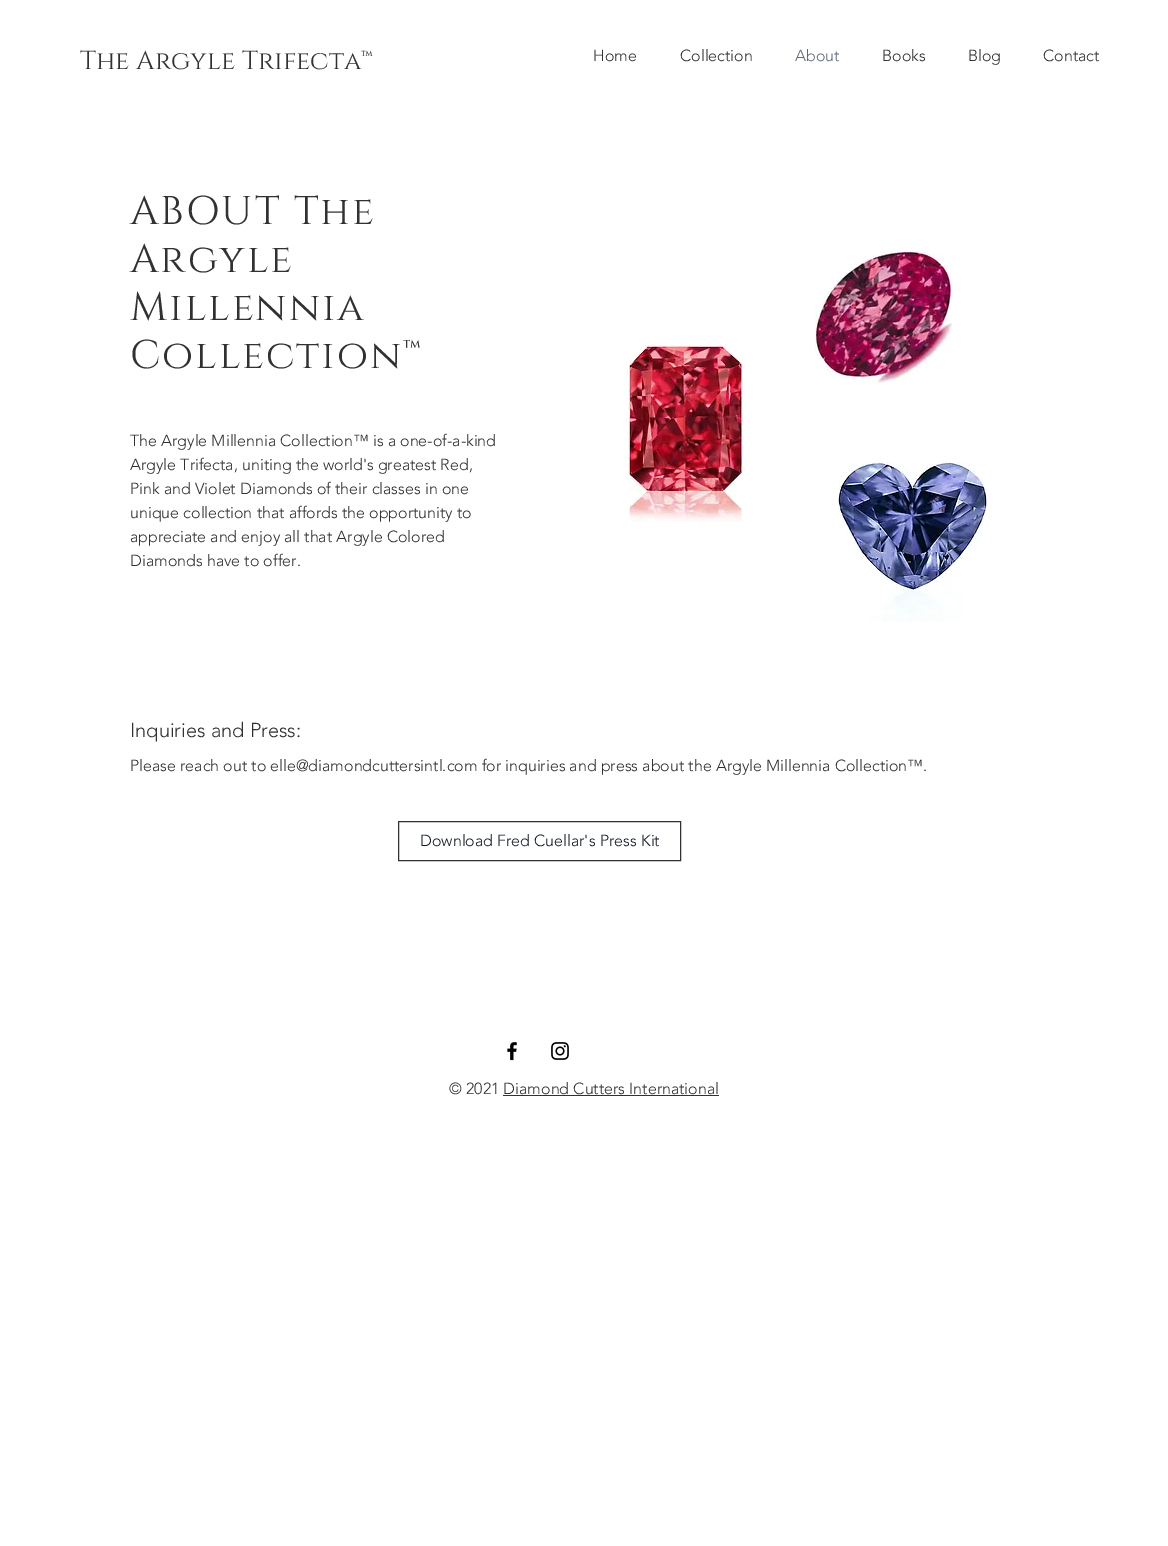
%!PS
<< /PageSize [1168 1546] >> setpagedevice
/rgb { 3 { 255 div 3 1 roll } repeat setrgbcolor } def
/font { [ exch dup neg 0 0 3 -1 roll 0 0 ] selectfont } def
/text { moveto show } def
/picture { 5 dict begin { /h /w /y /x /name } { exch def } forall
  gsave x y translate w h scale
  w h 8 [w 0 0 h 0 0] name (r) file false 3 colorimage grestore end } def
0 1546 translate 1 -1 scale
4 setmiterlimit
255 255 255 rgb
0 0 1168 1546 rectfill
(img_01.rgb) 815 247 137 136 picture
(img_02.rgb) 626 345 120 177 picture
(img_03.rgb) 837 462 150 160 picture
48 49 49 rgb
398.5 821.5 282 39 rectstroke
(img_04.rgb) 507 1041 10 20 picture
(img_05.rgb) 551 1042 18 18 picture
503 1095 216 1 rectfill
/Cinzel-Regular 26 font
(The Argyle Trifecta™) 80 69 text
/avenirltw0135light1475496-Light 16 font
(Home) 593 61 text
(Collection) 680 61 text
92 107 122 rgb
(About) 795 61 text
48 49 49 rgb
(Books) 882 61 text
(Blog) 968 61 text
(Contact) 1043 61 text
/Cinzel-Regular 40 font
130 224 moveto 2 0 (ABOUT The) ashow
130 272 moveto 2 0 (Argyle) ashow
130 320 moveto 2 0 (Millennia) ashow
130 368 moveto 2 0 (Collection™) ashow
/avenirltw0135light1475496-Light 16 font
(The Argyle Millennia Collection™ is a one-of-a-kind) 130 446 text
(Argyle Trifecta, uniting the world's greatest Red,) 130 470 text
(Pink and Violet Diamonds of their classes in one) 130 494 text
(unique collection that affords the opportunity to) 130 518 text
(appreciate and enjoy all that Argyle Colored) 130 542 text
(Diamonds have to offer.) 130 566 text
/avenirltw0135light1475496-Light 20 font
(Inquiries and Press:) 130 737 text
/avenirltw0135light1475496-Light 16 font
(Please reach out to elle@diamondcuttersintl.com for inquiries and press about the Argyle Millennia Collection™.) 130 771 text
20 29 39 rgb
(Download Fred Cuellar's Press Kit) 420 846 text
48 49 49 rgb
(© 2021 Diamond Cutters International) 449 1094 text
showpage
